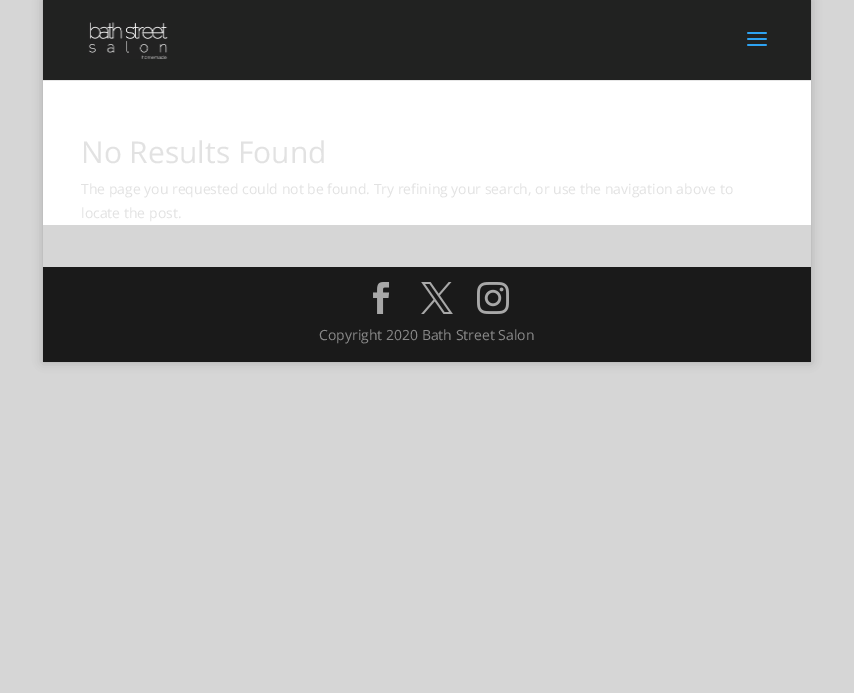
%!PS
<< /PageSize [854 693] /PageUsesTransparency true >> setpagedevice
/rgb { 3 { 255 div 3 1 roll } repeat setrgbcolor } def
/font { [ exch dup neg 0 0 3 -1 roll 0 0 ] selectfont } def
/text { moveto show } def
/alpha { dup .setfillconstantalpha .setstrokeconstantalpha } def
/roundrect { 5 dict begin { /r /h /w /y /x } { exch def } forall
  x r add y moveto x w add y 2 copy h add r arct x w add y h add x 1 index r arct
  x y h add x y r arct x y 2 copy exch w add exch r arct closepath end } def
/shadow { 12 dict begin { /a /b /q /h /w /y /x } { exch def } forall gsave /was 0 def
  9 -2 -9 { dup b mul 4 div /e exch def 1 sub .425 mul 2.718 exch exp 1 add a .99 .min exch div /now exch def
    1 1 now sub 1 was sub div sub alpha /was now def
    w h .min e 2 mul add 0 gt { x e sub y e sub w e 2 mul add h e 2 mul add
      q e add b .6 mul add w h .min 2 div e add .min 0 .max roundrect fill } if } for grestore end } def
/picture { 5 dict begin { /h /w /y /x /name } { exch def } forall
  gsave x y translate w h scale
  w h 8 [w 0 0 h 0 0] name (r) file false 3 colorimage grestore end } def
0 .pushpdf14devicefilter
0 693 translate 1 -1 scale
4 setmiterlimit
214 214 214 rgb
0 0 854 693 rectfill
gsave
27 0 moveto 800 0 rlineto 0 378 rlineto -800 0 rlineto closepath 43 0 moveto 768 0 rlineto 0 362 rlineto -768 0 rlineto closepath eoclip newpath
0 0 0 rgb
43 0 768 362 0 5 0.2 shadow
grestore
230 230 230 rgb
43 80 768 1 rectfill
33 34 33 rgb
43 0 768 80 rectfill
(img_01.rgb) 88 22 80 37 picture
(img_02.rgb) 747 32 20 14 picture
255 255 255 rgb
43 81 768 144 rectfill
26 26 26 rgb
43 267 768 95 rectfill
(img_03.rgb) 373 282 17 32 picture
(img_04.rgb) 421 282 32 32 picture
(img_05.rgb) 477 282 32 32 picture
/OpenSans-Regular 30 font
226 226 226 rgb
(No Results Found) 81 163 text
/OpenSans-Regular 14 font
(The page you requested could not be found. Try refining your search, or use the navigation above to) 81 194 text
(locate the post.) 81 218 text
137 137 137 rgb
(Copyright 2020 Bath Street Salon) 319 340 text
.poppdf14devicefilter showpage
